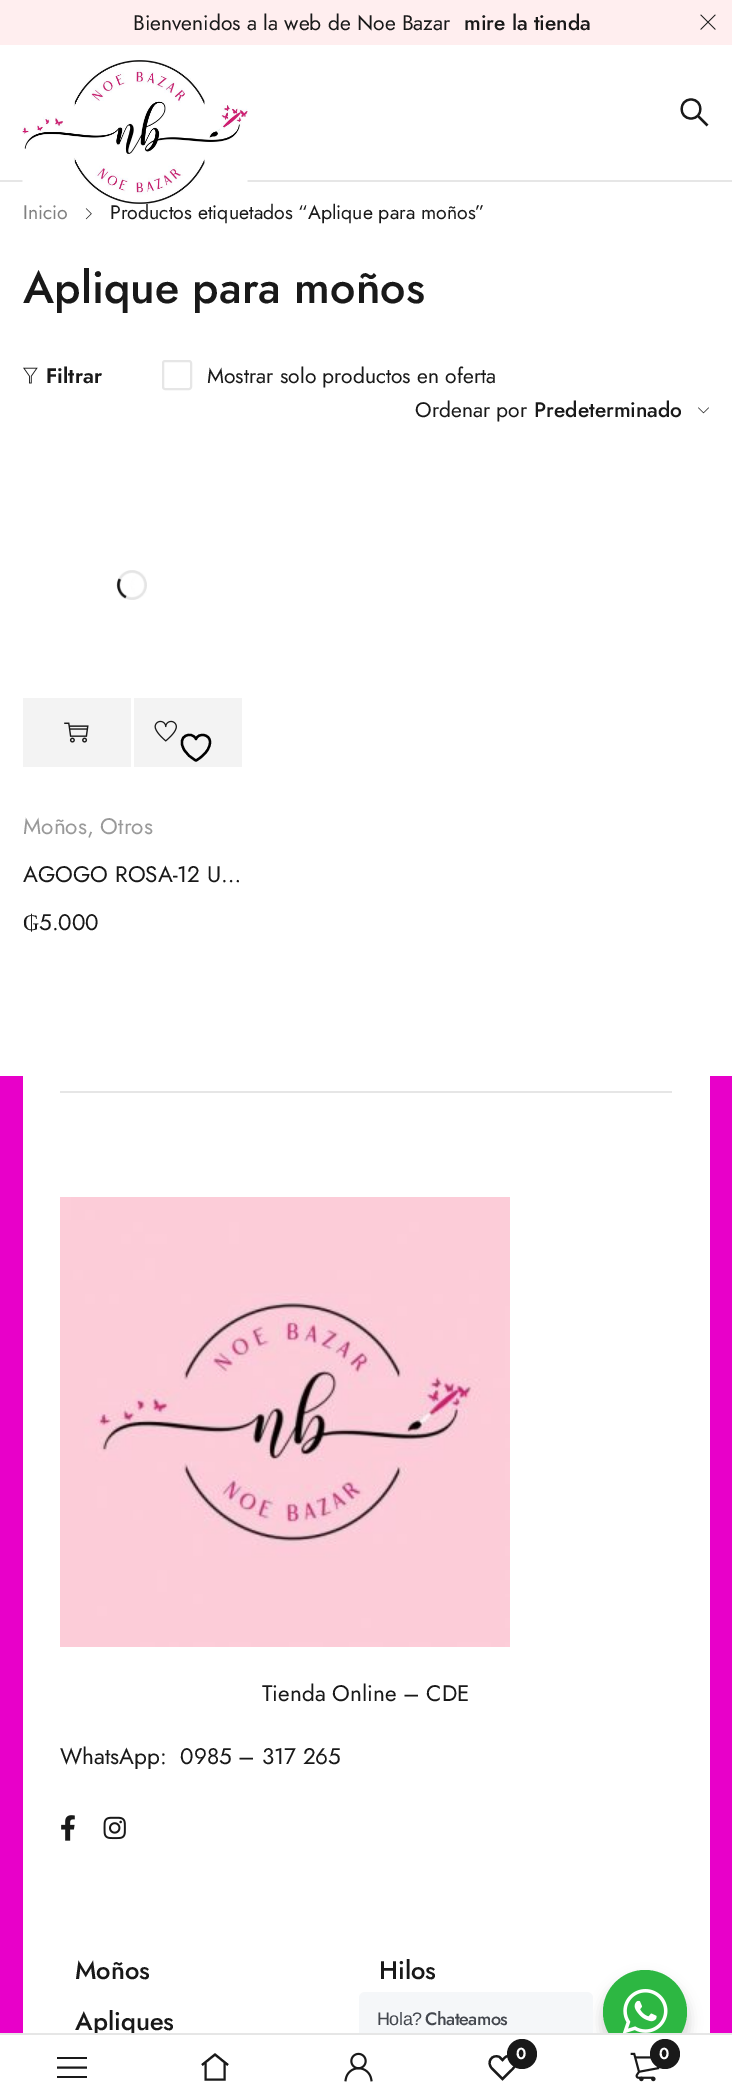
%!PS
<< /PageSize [732 2098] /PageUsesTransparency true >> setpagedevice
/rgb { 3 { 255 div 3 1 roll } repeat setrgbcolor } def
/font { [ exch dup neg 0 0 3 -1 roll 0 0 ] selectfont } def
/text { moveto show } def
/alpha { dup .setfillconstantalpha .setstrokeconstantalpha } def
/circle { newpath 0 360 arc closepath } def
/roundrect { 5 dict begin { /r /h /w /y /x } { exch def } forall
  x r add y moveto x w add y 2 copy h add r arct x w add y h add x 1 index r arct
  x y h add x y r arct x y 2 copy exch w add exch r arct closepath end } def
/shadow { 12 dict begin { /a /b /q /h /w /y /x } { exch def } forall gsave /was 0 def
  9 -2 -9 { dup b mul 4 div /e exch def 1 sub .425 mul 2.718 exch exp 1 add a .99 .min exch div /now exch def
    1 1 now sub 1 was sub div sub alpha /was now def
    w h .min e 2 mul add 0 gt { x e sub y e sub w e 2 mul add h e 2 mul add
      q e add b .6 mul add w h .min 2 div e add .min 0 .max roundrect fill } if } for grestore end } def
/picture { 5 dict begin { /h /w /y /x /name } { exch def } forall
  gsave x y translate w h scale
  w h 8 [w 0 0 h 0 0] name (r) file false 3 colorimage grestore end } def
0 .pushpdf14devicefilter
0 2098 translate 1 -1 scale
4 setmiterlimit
232 0 201 rgb
0 0 732 2098 rectfill
255 238 239 rgb
0 0 732 45 rectfill
(img_01.rgb) 700 14 16 16 picture
255 255 255 rgb
0 45 732 135 rectfill
230 230 230 rgb
0 180 732 2 rectfill
25 25 25 rgb
2.2 setlinewidth
691 118.5 moveto 12.5 0 12.5 -19 0 -19 rcurveto -12.5 0 -12.5 19 0 19 rcurveto closepath 707.5 125.5 moveto -10 -10 rlineto stroke
255 255 255 rgb
0 182 732 894 rectfill
(img_03.rgb) 85 208 7 12 picture
(img_04.rgb) 23 367 15 17 picture
230 230 230 rgb
2 setlinewidth
163 361 28 28 2 roundrect stroke
(img_05.rgb) 698 407 11 7 picture
(img_06.rgb) 116 570 31 30 picture
243 243 243 rgb
23 698 219 69 rectfill
255 255 255 rgb
131 698 3 69 rectfill
(img_07.rgb) 64 722 25 21 picture
(img_08.rgb) 154 720 23 22 picture
0 0 0 rgb
2.3 setlinewidth
1 setlinecap
1 setlinejoin
210 742 moveto 0 -8 -11.5 -9.5 -14 -3 rcurveto -4 -8.5 -20 -3.5 -12 10.5 rcurveto 2.5 4.5 7 8.5 12 11 rcurveto 0 0 14 -7.5 14 -18.5 rcurveto closepath stroke
255 255 255 rgb
23 1076 687 957 rectfill
230 230 230 rgb
60 1091 612 2 rectfill
(img_09.rgb) 60 1197 450 450 picture
(img_10.rgb) 61 1815 14 26 picture
(img_11.rgb) 103 1816 23 24 picture
0 0 0 rgb
600 1976 90 90 45 6 0.14 shadow
245 247 249 rgb
359 1992 234 54 6 roundrect fill
45 183 66 rgb
645 2012 42 circle fill
(img_12.rgb) 623 1989 45 44 picture
/Jost-Regular 21 font
25 25 25 rgb
(Bienvenidos a la web de Noe Bazar) 133 30 text
/Jost-Medium 21 font
(mire la tienda) 464 30 text
/Jost-Regular 19.5 font
128 128 128 rgb
(Inicio) 23 219 text
25 25 25 rgb
(Productos etiquetados “Aplique para moños”) 110 219 text
(img_02.rgb) 22 60 226 144 picture
/Jost-Medium 45 font
(Aplique para moños) 23 303 text
/Jost-SemiBold 21 font
(Filtrar) 46 383 text
/Jost-Regular 21 font
(Mostrar solo productos en oferta) 207 383 text
(Ordenar por) 415 417 text
/Jost-Medium 21 font
(Predeterminado) 534 417 text
/Jost-Regular 22.5 font
153 153 153 rgb
(Moños, Otros) 23 834 text
25 25 25 rgb
(AGOGO ROSA-12 U…) 23 882 text
/LiberationSerif-Regular 22.5 font
(₲) 23 930 text
/Jost-Regular 22.5 font
(5.000) 39 930 text
(Tienda Online – CDE) 262 1701 text
(WhatsApp:  0985 – 317 265) 60 1764 text
/Jost-Medium 25.5 font
(Moños) 75 1979 text
(Hilos) 379 1979 text
(Apliques) 75 2030 text
/LiberationSans-Regular 18 font
67 71 78 rgb
377 2025 moveto -0.5 0 (Hola?) ashow
/Jost-Medium 18 font
425 2025 moveto -0.5 0 (Chateamos) ashow
255 255 255 rgb
0 2035 732 63 rectfill
230 230 230 rgb
0 2033 732 2 rectfill
25 25 25 rgb
57 2057 30 2 rectfill
2 setlinewidth
0 setlinecap
0 setlinejoin
57 2067.5 moveto 30 0 rlineto stroke
57 2076 30 2 rectfill
2.1 setlinewidth
224.5 2063 moveto 0 16.5 rlineto -19 0 rlineto 0 -16.5 rlineto 228 2065 moveto -13 -10.5 rlineto -13 10.5 rlineto stroke
(img_13.rgb) 344 2052 29 30 picture
2.2 setlinewidth
492 2068.5 moveto -6 -6 0 -15 7.5 -11.5 rcurveto 3 3 rlineto 1.5 -1.5 2.5 -3 4 -3.5 rcurveto 5.5 -2 11 4 8.5 9.5 rcurveto -1 2 -3.5 4 -5.5 6 rcurveto -7 7 rlineto closepath stroke
522 2054 15 circle fill
/Jost-SemiBold 16 font
255 255 255 rgb
(0) 516 2059 text
(img_14.rgb) 630 2052 30 30 picture
25 25 25 rgb
665 2054 15 circle fill
255 255 255 rgb
(0) 659 2059 text
.poppdf14devicefilter showpage
